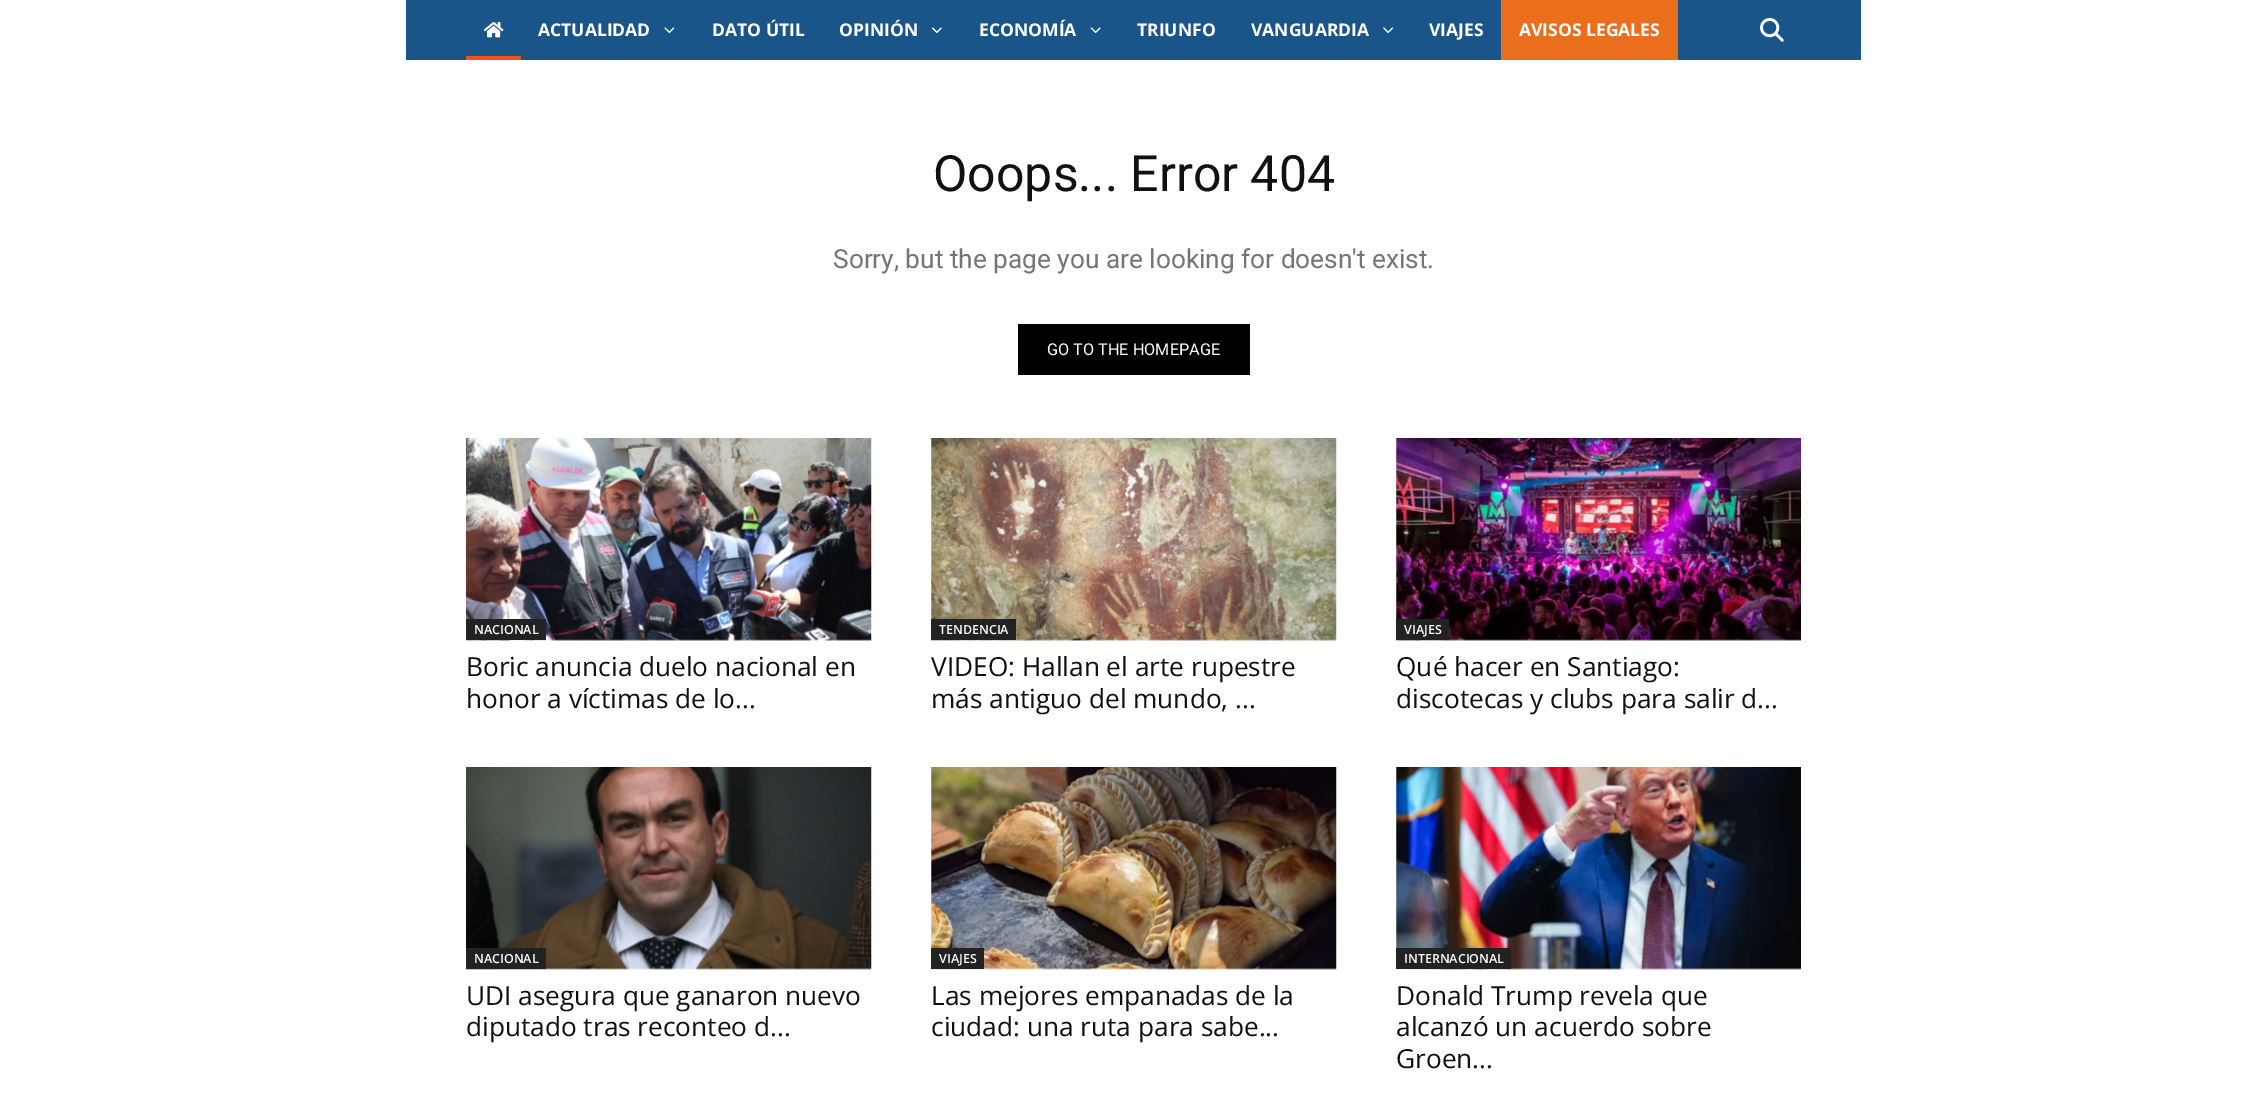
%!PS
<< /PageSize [2267 1108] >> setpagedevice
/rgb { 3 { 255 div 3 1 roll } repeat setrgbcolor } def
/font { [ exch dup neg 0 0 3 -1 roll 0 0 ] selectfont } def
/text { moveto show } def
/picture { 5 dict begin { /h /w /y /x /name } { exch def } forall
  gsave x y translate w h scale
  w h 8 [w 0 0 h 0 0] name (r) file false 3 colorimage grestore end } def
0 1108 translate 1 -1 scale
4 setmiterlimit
255 255 255 rgb
0 0 2267 1108 rectfill
26 85 137 rgb
406 0 1455 60 rectfill
(img_01.rgb) 483 22 21 16 picture
244 81 30 rgb
466 56 55 4 rectfill
(img_02.rgb) 664 27 11 6 picture
(img_03.rgb) 932 27 10 6 picture
(img_04.rgb) 1090 27 11 6 picture
(img_05.rgb) 1383 27 10 6 picture
234 110 28 rgb
1501 0 177 60 rectfill
(img_06.rgb) 1760 18 24 24 picture
0 0 0 rgb
1018 324 232 51 rectfill
(img_07.rgb) 466 438 406 203 picture
34 34 34 rgb
466 619 80 21 rectfill
(img_08.rgb) 931 438 406 203 picture
931 619 85 21 rectfill
(img_09.rgb) 1396 438 405 203 picture
1396 619 53 21 rectfill
(img_10.rgb) 466 767 406 203 picture
466 948 80 21 rectfill
(img_11.rgb) 931 767 406 203 picture
931 948 53 21 rectfill
(img_12.rgb) 1396 767 405 203 picture
1396 948 115 21 rectfill
/OpenSans-Bold 17.5 font
255 255 255 rgb
(ACTUALIDAD) 538 36 text
(DATO ÚTIL) 712 36 text
(OPINIÓN) 839 36 text
(ECONOMÍA) 979 36 text
(TRIUNFO) 1137 36 text
(VANGUARDIA) 1251 36 text
(VIAJES) 1429 36 text
(AVISOS LEGALES) 1519 36 text
/Roboto-Regular 50 font
17 17 17 rgb
(Ooops... Error 404) 933 191 text
/Roboto-Regular 26.25 font
117 117 117 rgb
(Sorry, but the page you are looking for doesn't exist.) 833 268 text
/Roboto-Regular 16.25 font
255 255 255 rgb
(GO TO THE HOMEPAGE) 1047 355 text
/OpenSans-SemiBold 12.5 font
(NACIONAL) 474 634 text
/OpenSans-Regular 26.25 font
17 17 17 rgb
(Boric anuncia duelo nacional en) 466 676 text
(honor a víctimas de lo...) 466 708 text
/OpenSans-SemiBold 12.5 font
255 255 255 rgb
(TENDENCIA) 939 634 text
/OpenSans-Regular 26.25 font
17 17 17 rgb
(VIDEO: Hallan el arte rupestre) 931 676 text
(más antiguo del mundo, ...) 931 708 text
/OpenSans-SemiBold 12.5 font
255 255 255 rgb
(VIAJES) 1404 634 text
/OpenSans-Regular 26.25 font
17 17 17 rgb
(Qué hacer en Santiago:) 1396 676 text
(discotecas y clubs para salir d...) 1396 708 text
/OpenSans-SemiBold 12.5 font
255 255 255 rgb
(NACIONAL) 474 963 text
/OpenSans-Regular 26.25 font
17 17 17 rgb
(UDI asegura que ganaron nuevo) 466 1005 text
(diputado tras reconteo d...) 466 1036 text
/OpenSans-SemiBold 12.5 font
255 255 255 rgb
(VIAJES) 939 963 text
/OpenSans-Regular 26.25 font
17 17 17 rgb
(Las mejores empanadas de la) 931 1005 text
(ciudad: una ruta para sabe...) 931 1036 text
/OpenSans-SemiBold 12.5 font
255 255 255 rgb
(INTERNACIONAL) 1404 963 text
/OpenSans-Regular 26.25 font
17 17 17 rgb
(Donald Trump revela que) 1396 1005 text
(alcanzó un acuerdo sobre) 1396 1036 text
(Groen...) 1396 1068 text
showpage
